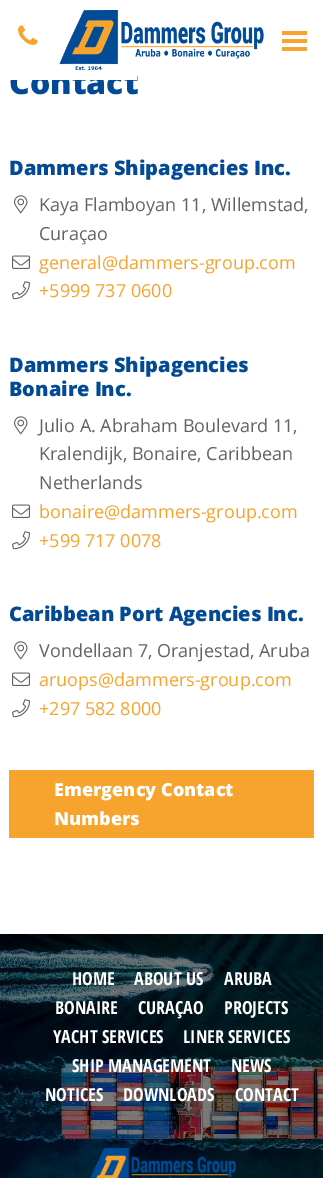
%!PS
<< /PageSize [323 1178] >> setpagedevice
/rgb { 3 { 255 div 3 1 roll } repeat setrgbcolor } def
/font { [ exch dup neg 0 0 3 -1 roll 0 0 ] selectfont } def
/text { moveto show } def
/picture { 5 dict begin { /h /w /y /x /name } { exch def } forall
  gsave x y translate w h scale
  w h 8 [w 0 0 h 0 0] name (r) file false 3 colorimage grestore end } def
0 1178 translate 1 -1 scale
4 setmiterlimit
255 255 255 rgb
0 0 323 1178 rectfill
(img_01.rgb) 59 10 205 60 picture
247 164 46 rgb
282 31 25 4 rectfill
282 39 25 4 rectfill
282 47 25 4 rectfill
(img_02.rgb) 18 25 20 20 picture
(img_03.rgb) 14 195 14 19 picture
(img_04.rgb) 12 255 18 14 picture
(img_05.rgb) 12 281 18 19 picture
(img_03.rgb) 14 416 14 19 picture
(img_04.rgb) 12 504 18 14 picture
(img_05.rgb) 12 531 18 19 picture
(img_03.rgb) 14 641 14 19 picture
(img_04.rgb) 12 672 18 14 picture
(img_05.rgb) 12 699 18 19 picture
9 770 305 68 rectfill
(img_06.rgb) 0 934 323 244 picture
(img_07.rgb) 90 1148 146 30 picture
/OpenSans-ExtraBold 32 font
2 74 149 rgb
(Contact) 9 94 text
255 255 255 rgb
10 70 127 10 rectfill
/OpenSans-ExtraBold 20 font
2 74 149 rgb
(Dammers Shipagencies Inc.) 9 175 text
/OpenSans-Regular 18 font
100 98 101 rgb
(Kaya Flamboyan 11, Willemstad,) 39 211 text
(Curaçao) 39 240 text
247 164 46 rgb
(general@dammers-group.com) 39 269 text
(+5999 737 0600) 39 297 text
/OpenSans-ExtraBold 20 font
2 74 149 rgb
(Dammers Shipagencies) 9 372 text
(Bonaire Inc.) 9 396 text
/OpenSans-Regular 18 font
100 98 101 rgb
(Julio A. Abraham Boulevard 11,) 39 432 text
(Kralendijk, Bonaire, Caribbean) 39 460 text
(Netherlands) 39 489 text
247 164 46 rgb
(bonaire@dammers-group.com) 39 518 text
(+599 717 0078) 39 547 text
/OpenSans-ExtraBold 20 font
2 74 149 rgb
(Caribbean Port Agencies Inc.) 9 621 text
/OpenSans-Regular 18 font
100 98 101 rgb
(Vondellaan 7, Oranjestad, Aruba) 39 657 text
247 164 46 rgb
(aruops@dammers-group.com) 39 686 text
(+297 582 8000) 39 715 text
/OpenSans-ExtraBold 18 font
255 255 255 rgb
(Emergency Contact) 54 796 text
(Numbers) 54 825 text
/OpenSansCondensed-Bold 18 font
(HOME) 72 985 text
(ABOUT US) 134 985 text
(ARUBA) 224 985 text
(BONAIRE) 55 1014 text
(CURAÇAO) 138 1014 text
(PROJECTS) 224 1014 text
(YACHT SERVICES) 53 1043 text
(LINER SERVICES) 183 1043 text
(SHIP MANAGEMENT) 72 1072 text
(NEWS) 231 1072 text
(NOTICES) 45 1101 text
(DOWNLOADS) 123 1101 text
(CONTACT) 235 1101 text
showpage
